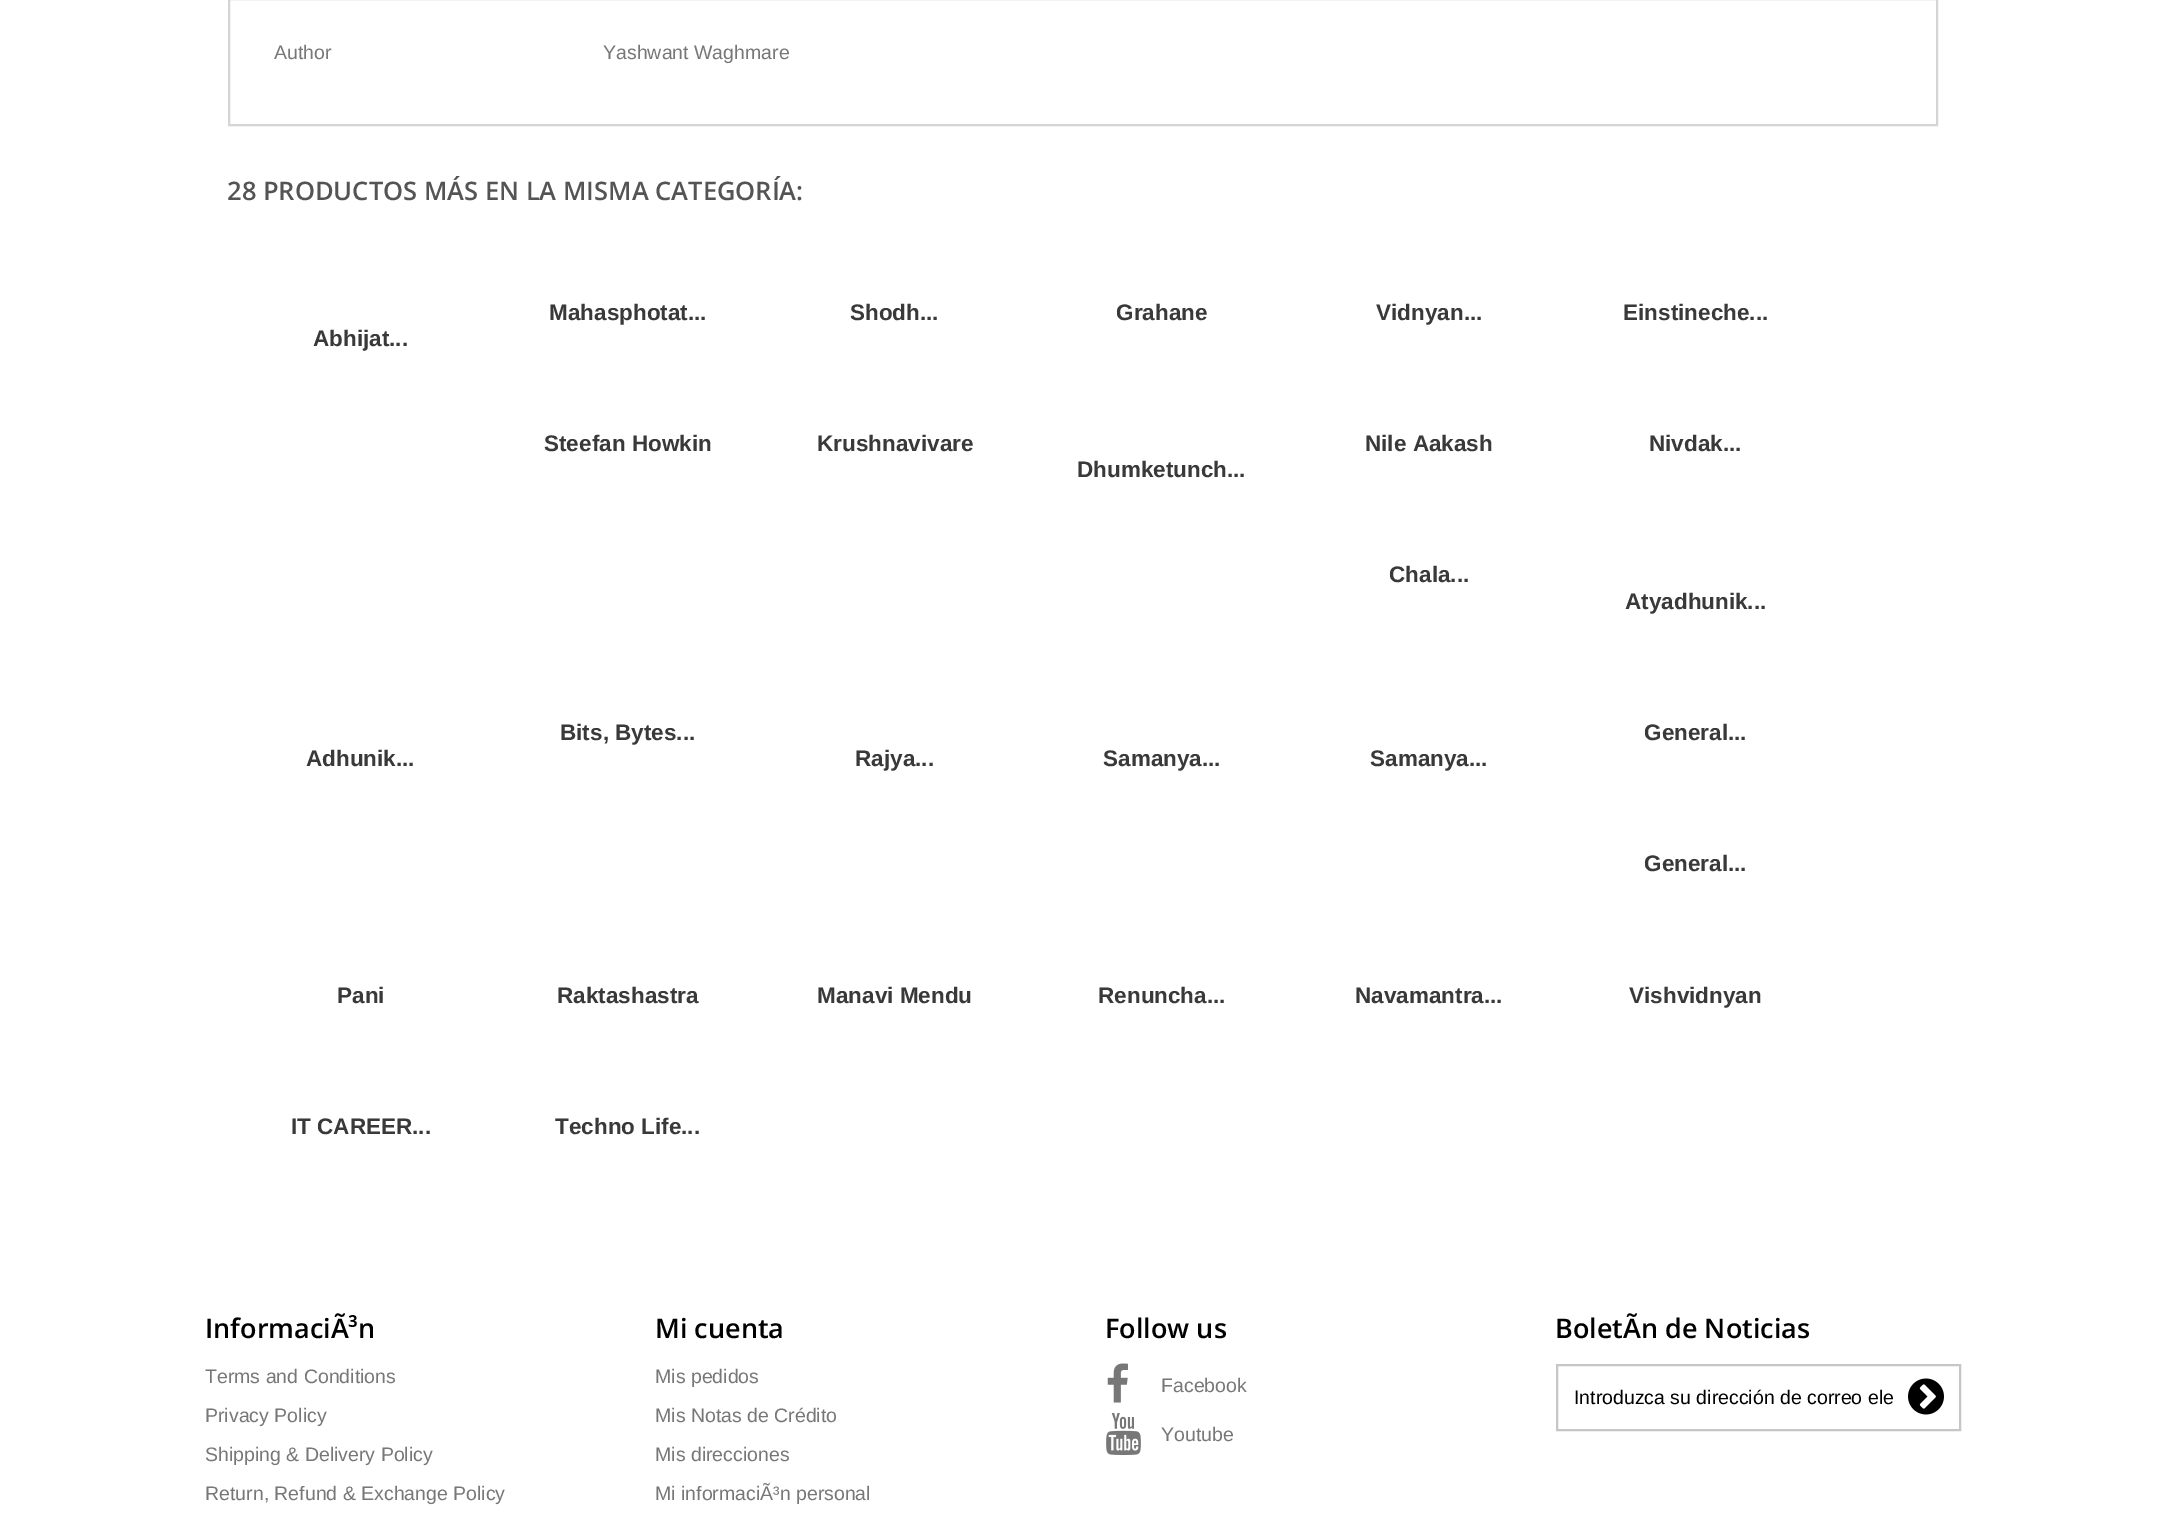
%!PS
<< /PageSize [2164 1519] >> setpagedevice
/rgb { 3 { 255 div 3 1 roll } repeat setrgbcolor } def
/font { [ exch dup neg 0 0 3 -1 roll 0 0 ] selectfont } def
/text { moveto show } def
/picture { 5 dict begin { /h /w /y /x /name } { exch def } forall
  gsave x y translate w h scale
  w h 8 [w 0 0 h 0 0] name (r) file false 3 colorimage grestore end } def
0 1519 translate 1 -1 scale
4 setmiterlimit
255 255 255 rgb
0 0 2164 1519 rectfill
214 212 212 rgb
2 setlinewidth
229 -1 1708 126 rectstroke
(img_01.rgb) 1107 1363 21 40 picture
(img_02.rgb) 1106 1413 35 42 picture
198 198 198 rgb
1557 1365 403 65 rectstroke
(img_03.rgb) 1908 1378 36 37 picture
/LiberationSans-Regular 19.5 font
119 119 119 rgb
(Author) 274 59 text
(Yashwant Waghmare) 603 59 text
/OpenSans-SemiBold 25.5 font
85 84 84 rgb
(28 PRODUCTOS MÁS EN LA MISMA CATEGORÍA:) 227 200 text
/LiberationSans-Bold 22.5 font
58 57 57 rgb
(Mahasphotat...) 549 320 text
(Shodh...) 850 320 text
(Grahane) 1116 320 text
(Vidnyan...) 1376 320 text
(Einstineche...) 1623 320 text
(Abhijat...) 313 346 text
(Steefan Howkin) 544 451 text
(Krushnavivare) 817 451 text
(Nile Aakash) 1365 451 text
(Nivdak...) 1649 451 text
(Dhumketunch...) 1077 477 text
(Chala...) 1389 582 text
(Atyadhunik...) 1625 609 text
(Bits, Bytes...) 560 740 text
(General...) 1644 740 text
(Adhunik...) 306 766 text
(Rajya...) 855 766 text
(Samanya...) 1103 766 text
(Samanya...) 1370 766 text
(General...) 1644 871 text
(Pani) 337 1003 text
(Raktashastra) 557 1003 text
(Manavi Mendu) 817 1003 text
(Renuncha...) 1098 1003 text
(Navamantra...) 1355 1003 text
(Vishvidnyan) 1629 1003 text
(IT CAREER...) 291 1134 text
(Techno Life...) 555 1134 text
/OpenSans-SemiBold 27 font
0 0 0 rgb
(InformaciÃ³n) 205 1338 text
/LiberationSans-Regular 19.5 font
119 119 119 rgb
(Terms and Conditions) 205 1383 text
(Privacy Policy) 205 1422 text
(Shipping & Delivery Policy) 205 1461 text
(Return, Refund & Exchange Policy) 205 1500 text
/OpenSans-SemiBold 27 font
0 0 0 rgb
(Mi cuenta) 655 1338 text
/LiberationSans-Regular 19.5 font
119 119 119 rgb
(Mis pedidos) 655 1383 text
(Mis Notas de Crédito) 655 1422 text
(Mis direcciones) 655 1461 text
(Mi informaciÃ³n personal) 655 1500 text
/OpenSans-SemiBold 27 font
0 0 0 rgb
(Follow us) 1105 1338 text
/LiberationSans-Regular 19.5 font
119 119 119 rgb
(Facebook) 1161 1392 text
(Youtube) 1161 1441 text
/OpenSans-SemiBold 27 font
0 0 0 rgb
(BoletÃn de Noticias) 1555 1338 text
/LiberationSans-Regular 19.5 font
(Introduzca su dirección de correo ele) 1574 1404 text
showpage
